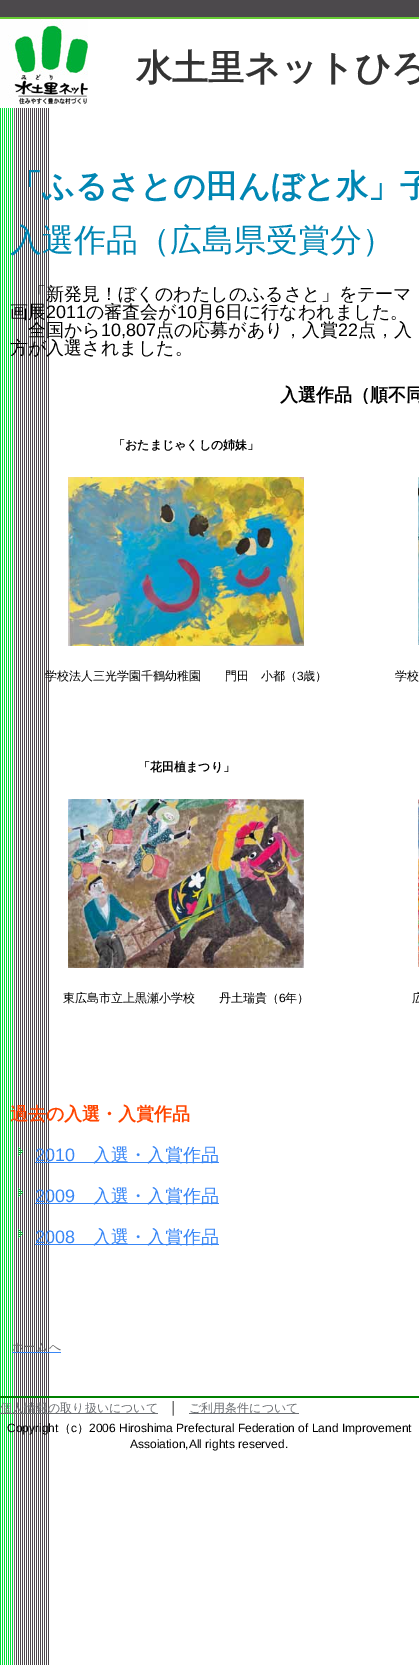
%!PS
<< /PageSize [419 1665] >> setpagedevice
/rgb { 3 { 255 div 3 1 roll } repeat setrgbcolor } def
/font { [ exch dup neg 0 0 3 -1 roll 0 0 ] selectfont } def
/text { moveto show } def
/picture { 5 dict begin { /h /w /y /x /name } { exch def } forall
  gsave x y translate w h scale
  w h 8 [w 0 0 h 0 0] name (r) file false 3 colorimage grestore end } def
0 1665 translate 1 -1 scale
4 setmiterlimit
255 255 255 rgb
0 0 419 1665 rectfill
(img_01.rgb) 0 108 49 1557 picture
76 73 76 rgb
0 0 419 17 rectfill
102 204 51 rgb
0 17 419 2 rectfill
(img_02.rgb) 0 19 88 89 picture
(img_03.rgb) 68 477 236 169 picture
(img_04.rgb) 418 477 1 168 picture
(img_05.rgb) 68 799 236 169 picture
(img_06.rgb) 418 799 1 168 picture
(img_07.rgb) 18 1147 5 9 picture
57 135 246 rgb
35 1162 184 1 rectfill
(img_07.rgb) 18 1188 5 9 picture
35 1203 184 1 rectfill
(img_07.rgb) 18 1229 5 9 picture
35 1244 184 1 rectfill
12 1352 49 1 rectfill
0 128 0 rgb
0 1396 419 2 rectfill
107 110 114 rgb
0 1413 158 1 rectfill
189 1413 110 1 rectfill
/WenQuanYiZenHei-Bold 36 font
51 51 51 rgb
(水土里ネットひろ) 136 80 text
/WenQuanYiZenHei-Bold 32 font
0 134 179 rgb
(「ふるさとの田んぼと水」子) 10 197 text
/WenQuanYiZenHei-Medium 32 font
(入選作品（広島県受賞分）) 10 251 text
/WenQuanYiZenHei-Medium 18 font
0 0 0 rgb
(「新発見！ぼくのわたしのふるさと」をテーマ) 28 300 text
(画展) 10 318 text
/LiberationSans-Regular 18 font
(2011) 46 318 text
/WenQuanYiZenHei-Medium 18 font
(の審査会が) 86 318 text
/LiberationSans-Regular 18 font
(10) 177 318 text
/WenQuanYiZenHei-Medium 18 font
(月) 197 318 text
/LiberationSans-Regular 18 font
(6) 215 318 text
/WenQuanYiZenHei-Medium 18 font
(日に行なわれました。) 225 318 text
(全国から) 28 336 text
/LiberationSans-Regular 18 font
(10,807) 101 336 text
/WenQuanYiZenHei-Medium 18 font
(点の応募があり，入賞) 156 336 text
/LiberationSans-Regular 18 font
(22) 338 336 text
/WenQuanYiZenHei-Medium 18 font
(点，入) 358 336 text
(方が入選されました。) 10 354 text
/WenQuanYiZenHei-Bold 18 font
(入選作品（順不同) 280 401 text
/WenQuanYiZenHei-Bold 12 font
(「おたまじゃくしの姉妹」) 113 449 text
/WenQuanYiZenHei-Medium 12 font
(学校法人三光学園千鶴幼稚園　　門田　小都（) 45 680 text
/LiberationSans-Regular 12 font
(3) 297 680 text
/WenQuanYiZenHei-Medium 12 font
(歳）) 303 680 text
(学校) 395 680 text
/WenQuanYiZenHei-Bold 12 font
(「花田植まつり」) 138 771 text
/WenQuanYiZenHei-Medium 12 font
(東広島市立上黒瀬小学校　　丹土瑞貴（) 63 1002 text
/LiberationSans-Regular 12 font
(6) 279 1002 text
/WenQuanYiZenHei-Medium 12 font
(年）) 285 1002 text
(広) 412 1002 text
/WenQuanYiZenHei-Bold 18 font
255 69 0 rgb
(過去の入選・入賞作品) 10 1120 text
/LiberationSans-Regular 18 font
57 135 246 rgb
(2010) 35 1161 text
/WenQuanYiZenHei-Medium 18 font
(入選・入賞作品) 93 1161 text
/LiberationSans-Regular 18 font
(2009) 35 1202 text
/WenQuanYiZenHei-Medium 18 font
(入選・入賞作品) 93 1202 text
/LiberationSans-Regular 18 font
(2008) 35 1243 text
/WenQuanYiZenHei-Medium 18 font
(入選・入賞作品) 93 1243 text
/WenQuanYiZenHei-Medium 12 font
105 105 105 rgb
(ホームへ) 12 1351 text
107 110 114 rgb
(個人情報の取り扱いについて) 0 1412 text
/LiberationSans-Regular 12 font
0 0 0 rgb
(│) 170 1412 text
/WenQuanYiZenHei-Medium 12 font
107 110 114 rgb
(ご利用条件について) 189 1412 text
/LiberationSans-Regular 12 font
0 0 0 rgb
(Copyright) 7 1432 text
/WenQuanYiZenHei-Medium 12 font
(（) 59 1432 text
/LiberationSans-Regular 12 font
(c) 71 1432 text
/WenQuanYiZenHei-Medium 12 font
(）) 77 1432 text
/LiberationSans-Regular 12 font
(2006 Hiroshima Prefectural Federation of Land Improvement) 89 1432 text
(Assoiation,All rights reserved.) 130 1448 text
showpage
